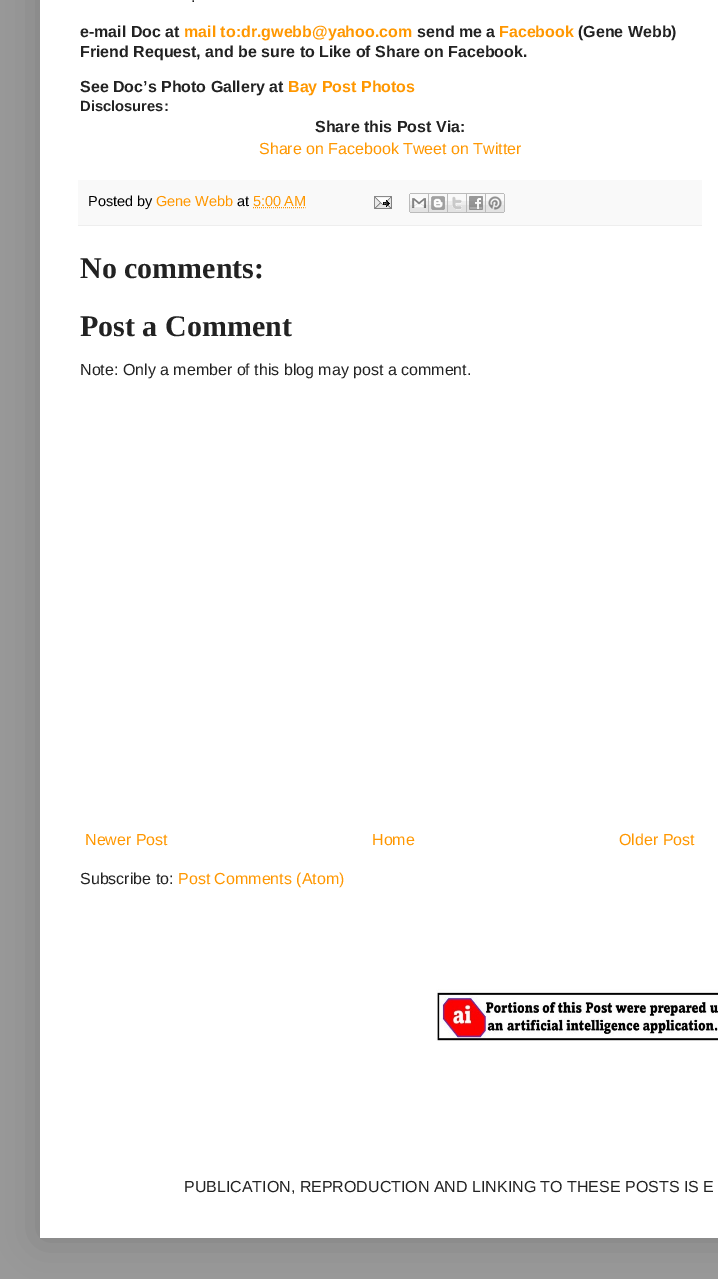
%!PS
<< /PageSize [718 1279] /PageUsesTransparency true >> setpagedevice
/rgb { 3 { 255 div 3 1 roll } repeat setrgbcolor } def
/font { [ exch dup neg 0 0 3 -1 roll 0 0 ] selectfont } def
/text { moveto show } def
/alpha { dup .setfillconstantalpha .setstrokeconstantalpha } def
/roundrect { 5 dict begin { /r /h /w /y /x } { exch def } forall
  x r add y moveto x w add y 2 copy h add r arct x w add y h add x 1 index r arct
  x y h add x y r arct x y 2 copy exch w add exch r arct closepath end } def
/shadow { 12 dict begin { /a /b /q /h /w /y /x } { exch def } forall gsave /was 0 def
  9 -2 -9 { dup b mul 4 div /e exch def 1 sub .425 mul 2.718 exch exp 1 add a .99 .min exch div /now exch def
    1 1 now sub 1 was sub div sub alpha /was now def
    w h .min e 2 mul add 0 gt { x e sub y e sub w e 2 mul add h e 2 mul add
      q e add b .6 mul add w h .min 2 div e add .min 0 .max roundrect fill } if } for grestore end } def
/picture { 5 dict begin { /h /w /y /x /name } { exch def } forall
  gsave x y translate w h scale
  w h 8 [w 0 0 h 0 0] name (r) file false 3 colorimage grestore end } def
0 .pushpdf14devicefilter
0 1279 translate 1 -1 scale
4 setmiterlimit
153 153 153 rgb
0 0 718 1279 rectfill
0 0 0 rgb
40 -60 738 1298 0 20 0.15 shadow
255 255 255 rgb
40 0 678 1238 rectfill
249 249 249 rgb
78 180 624 45 rectfill
238 238 238 rgb
78 225 624 1 rectfill
255 151 0 rgb
[1 1] 0 setdash
253 207.5 moveto 52.5 0 rlineto stroke
(img_01.rgb) 374 196 18 13 picture
(img_02.rgb) 409 193 20 20 picture
(img_03.rgb) 429 193 19 20 picture
(img_04.rgb) 448 193 19 20 picture
(img_05.rgb) 467 193 19 20 picture
(img_06.rgb) 486 193 19 20 picture
(img_07.rgb) 436 989 282 52 picture
/LiberationSans-Regular 16 font
34 34 34 rgb
(.) 191 2 text
/LiberationSans-Bold 16 font
(e-mail Doc at) 80 37 text
255 151 0 rgb
(mail to:dr.gwebb@yahoo.com) 184 37 text
34 34 34 rgb
(send me a) 417 37 text
255 151 0 rgb
(Facebook) 499 37 text
34 34 34 rgb
(\(Gene Webb\)) 578 37 text
(Friend Request, and be sure to Like of Share on Facebook.) 80 57 text
(See Doc’s Photo Gallery at) 80 92 text
255 151 0 rgb
(Bay Post Photos) 288 92 text
/LiberationSans-Bold 14.75 font
34 34 34 rgb
(Disclosures:) 80 111 text
/LiberationSans-Bold 16 font
(Share this Post Via:) 315 132 text
/LiberationSans-Regular 16 font
255 151 0 rgb
(Share on Facebook Tweet on Twitter) 259 154 text
/LiberationSans-Regular 14.5 font
0 0 0 rgb
(Posted by) 88 206 text
255 151 0 rgb
(Gene Webb) 156 206 text
0 0 0 rgb
(at) 237 206 text
255 151 0 rgb
(5:00 AM) 253 206 text
/LiberationSerif-Bold 30 font
34 34 34 rgb
(No comments:) 80 278 text
(Post a Comment) 80 336 text
/LiberationSans-Regular 16 font
(Note: Only a member of this blog may post a comment.) 80 375 text
255 151 0 rgb
(Newer Post) 85 845 text
(Home) 372 845 text
(Older Post) 619 845 text
34 34 34 rgb
(Subscribe to:) 80 884 text
255 151 0 rgb
(Post Comments \(Atom\)) 178 884 text
34 34 34 rgb
(PUBLICATION, REPRODUCTION AND LINKING TO THESE POSTS IS E) 184 1192 text
.poppdf14devicefilter showpage
